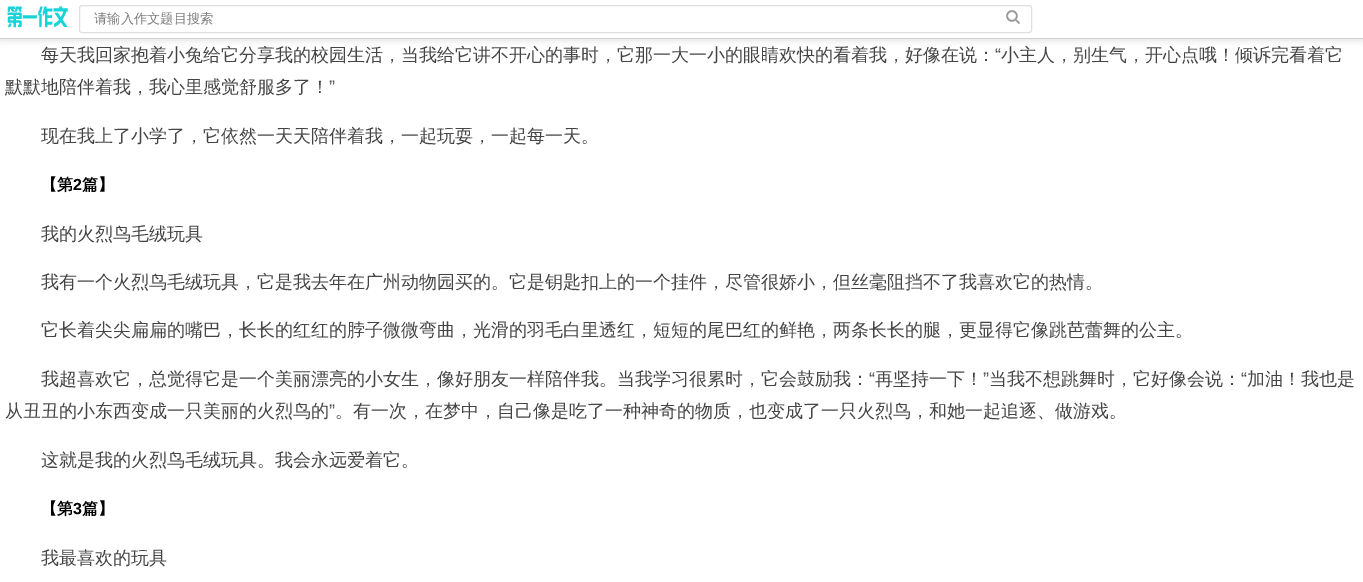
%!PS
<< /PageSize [1363 582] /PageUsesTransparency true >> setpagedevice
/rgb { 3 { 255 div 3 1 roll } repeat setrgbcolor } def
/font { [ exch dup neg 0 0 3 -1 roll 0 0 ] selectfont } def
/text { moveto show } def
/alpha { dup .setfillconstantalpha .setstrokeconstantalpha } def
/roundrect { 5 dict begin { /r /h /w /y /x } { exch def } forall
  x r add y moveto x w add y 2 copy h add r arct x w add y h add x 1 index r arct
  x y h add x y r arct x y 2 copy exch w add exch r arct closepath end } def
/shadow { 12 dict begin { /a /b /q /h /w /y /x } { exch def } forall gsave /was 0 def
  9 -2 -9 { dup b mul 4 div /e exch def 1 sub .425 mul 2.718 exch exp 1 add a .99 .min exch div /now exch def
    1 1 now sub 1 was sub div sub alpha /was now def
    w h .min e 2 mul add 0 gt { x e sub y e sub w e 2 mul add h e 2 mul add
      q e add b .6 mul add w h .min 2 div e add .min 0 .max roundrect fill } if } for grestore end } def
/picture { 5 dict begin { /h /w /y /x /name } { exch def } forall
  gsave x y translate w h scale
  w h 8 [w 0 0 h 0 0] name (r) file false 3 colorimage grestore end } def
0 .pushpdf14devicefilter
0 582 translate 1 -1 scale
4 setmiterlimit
255 255 255 rgb
0 0 1363 582 rectfill
gsave
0 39 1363 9 rectclip
217 217 217 rgb
0 1 1363 39 0 4 0.95 shadow
grestore
207 207 207 rgb
0 38 1363 1 rectfill
(img_01.rgb) 6 5 63 23 picture
0.95 alpha
221 221 221 rgb
79.5 5.5 952 27 2.5 roundrect stroke
1 alpha
(img_02.rgb) 1006 10 14 14 picture
/WenQuanYiZenHei-Medium 13.25 font
124 124 124 rgb
(请输入作文题目搜索) 94 23 text
/WenQuanYiZenHei-Medium 18 font
68 68 68 rgb
(每天我回家抱着小兔给它分享我的校园生活，当我给它讲不开心的事时，它那一大一小的眼睛欢快的看着我，好像在说：) 41 61 text
/LiberationSans-Regular 18 font
(“) 995 61 text
/WenQuanYiZenHei-Medium 18 font
(小主人，别生气，开心点哦！倾诉完看着它) 1001 61 text
(默默地陪伴着我，我心里感觉舒服多了！) 5 93 text
/LiberationSans-Regular 18 font
(”) 329 93 text
/WenQuanYiZenHei-Medium 18 font
(现在我上了小学了，它依然一天天陪伴着我，一起玩耍，一起每一天。) 41 142 text
/WenQuanYiZenHei-Bold 16 font
0 0 0 rgb
(【第) 41 190 text
/LiberationSans-Bold 16 font
(2) 73 190 text
/WenQuanYiZenHei-Bold 16 font
(篇】) 82 190 text
/WenQuanYiZenHei-Medium 18 font
68 68 68 rgb
(我的火烈鸟毛绒玩具) 41 240 text
(我有一个火烈鸟毛绒玩具，它是我去年在广州动物园买的。它是钥匙扣上的一个挂件，尽管很娇小，但丝毫阻挡不了我喜欢它的热情。) 41 288 text
(它长着尖尖扁扁的嘴巴，长长的红红的脖子微微弯曲，光滑的羽毛白里透红，短短的尾巴红的鲜艳，两条长长的腿，更显得它像跳芭蕾舞的公主。) 41 336 text
(我超喜欢它，总觉得它是一个美丽漂亮的小女生，像好朋友一样陪伴我。当我学习很累时，它会鼓励我：) 41 385 text
/LiberationSans-Regular 18 font
(“) 869 385 text
/WenQuanYiZenHei-Medium 18 font
(再坚持一下！) 875 385 text
/LiberationSans-Regular 18 font
(”) 983 385 text
/WenQuanYiZenHei-Medium 18 font
(当我不想跳舞时，它好像会说：) 989 385 text
/LiberationSans-Regular 18 font
(“) 1241 385 text
/WenQuanYiZenHei-Medium 18 font
(加油！我也是) 1247 385 text
(从丑丑的小东西变成一只美丽的火烈鸟的) 5 417 text
/LiberationSans-Regular 18 font
(”) 329 417 text
/WenQuanYiZenHei-Medium 18 font
(。有一次，在梦中，自己像是吃了一种神奇的物质，也变成了一只火烈鸟，和她一起追逐、做游戏。) 335 417 text
(这就是我的火烈鸟毛绒玩具。我会永远爱着它。) 41 466 text
/WenQuanYiZenHei-Bold 16 font
0 0 0 rgb
(【第) 41 514 text
/LiberationSans-Bold 16 font
(3) 73 514 text
/WenQuanYiZenHei-Bold 16 font
(篇】) 82 514 text
/WenQuanYiZenHei-Medium 18 font
68 68 68 rgb
(我最喜欢的玩具) 41 564 text
.poppdf14devicefilter showpage
